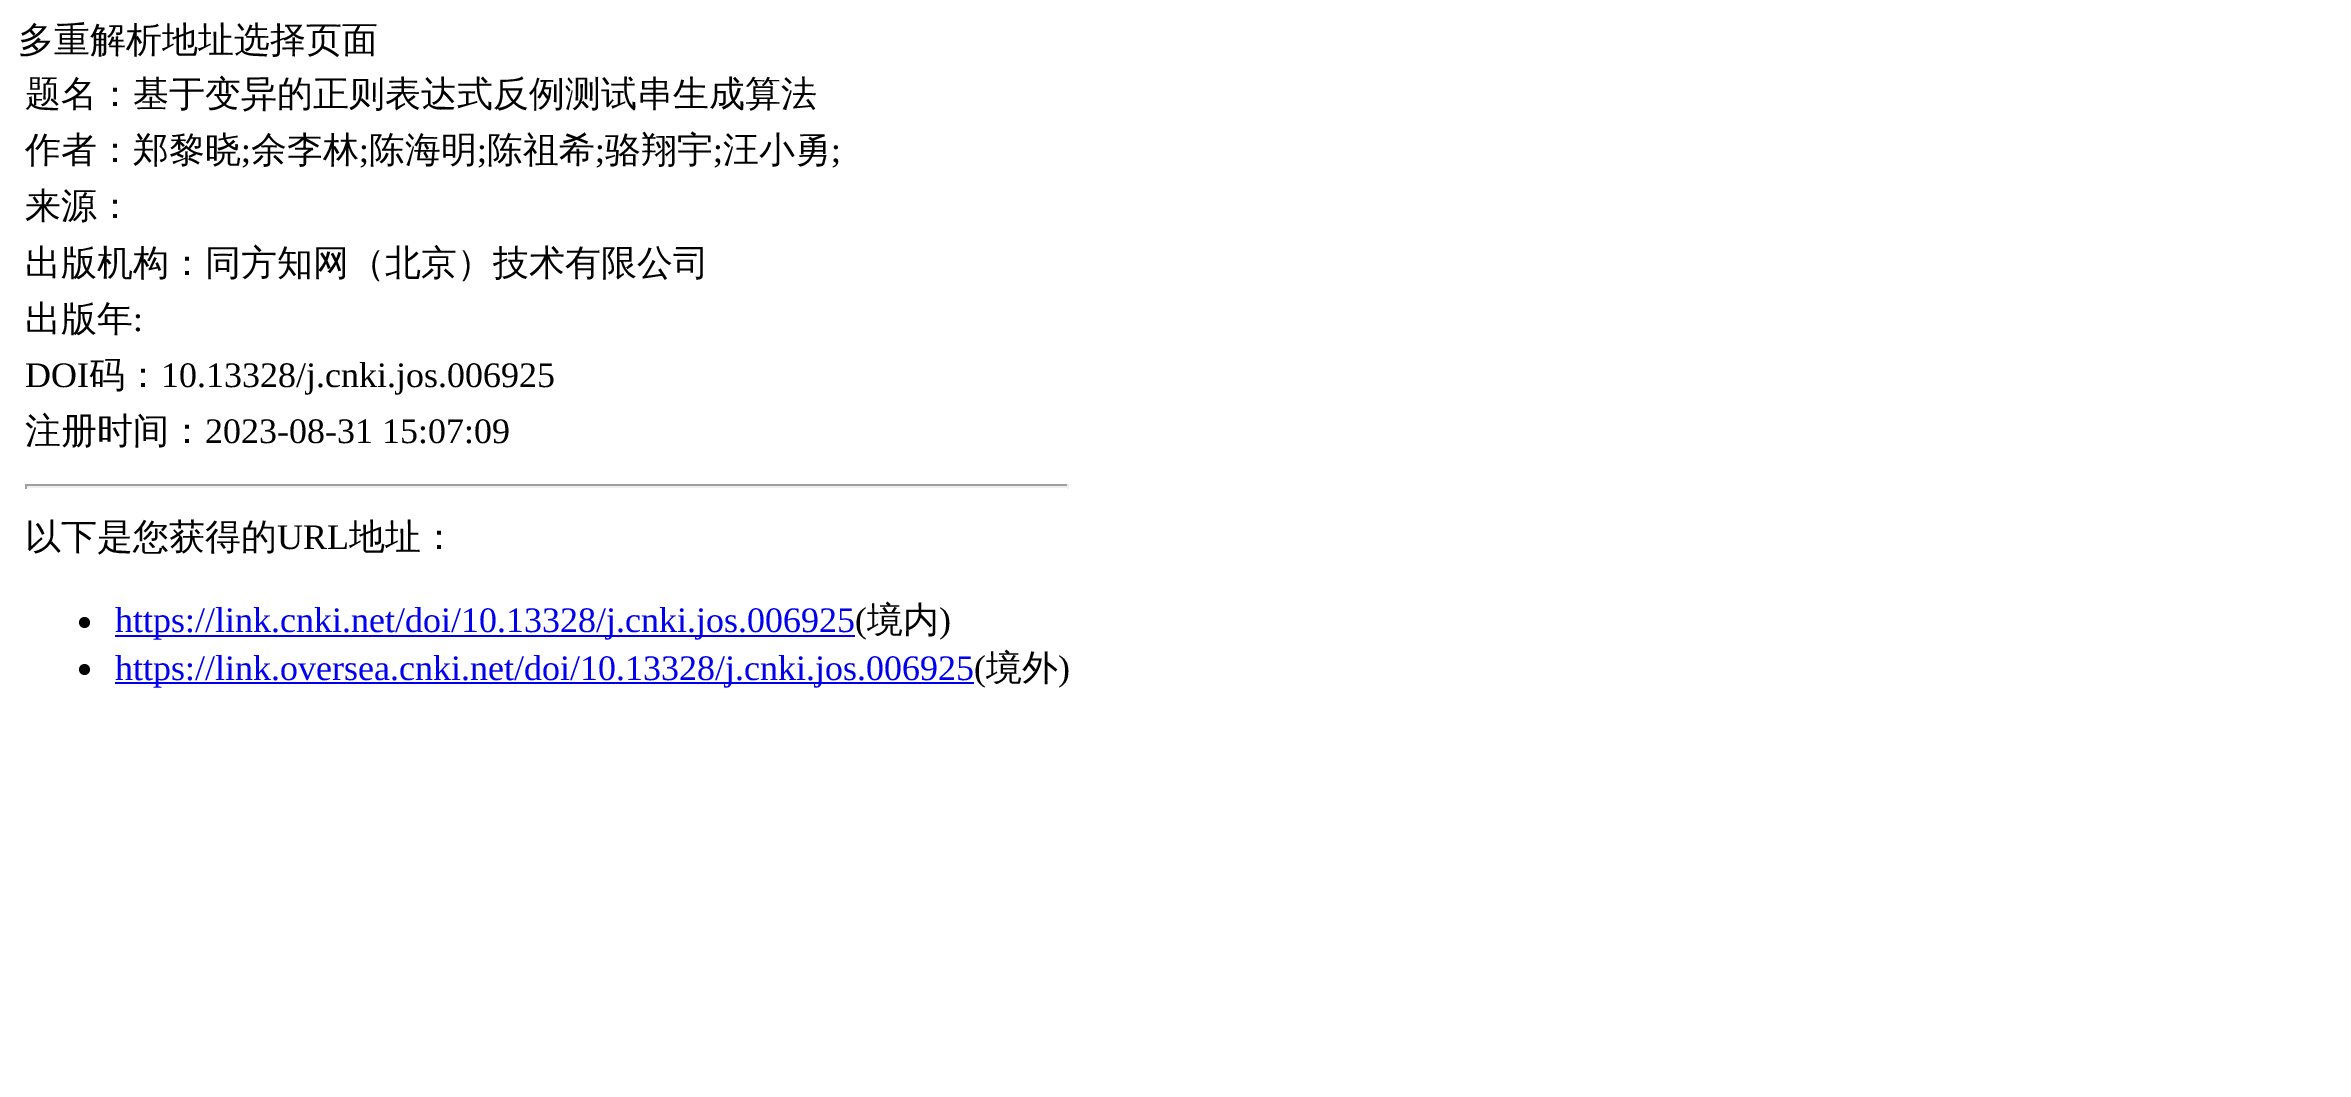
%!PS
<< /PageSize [2351 1097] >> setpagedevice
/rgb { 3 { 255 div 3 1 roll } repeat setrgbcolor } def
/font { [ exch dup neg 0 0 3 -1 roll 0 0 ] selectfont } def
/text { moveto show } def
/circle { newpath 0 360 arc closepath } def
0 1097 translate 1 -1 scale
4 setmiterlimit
255 255 255 rgb
0 0 2351 1097 rectfill
159 159 159 rgb
25 484 1044 2 rectfill
238 238 238 rgb
1067 484 2 5 rectfill
25 486 1044 2 rectfill
159 159 159 rgb
25 484 2 5 rectfill
0 0 0 rgb
84.5 622.5 5.5 circle fill
0 0 238 rgb
115 635 740 2 rectfill
0 0 0 rgb
84.5 669.5 5.5 circle fill
0 0 238 rgb
115 682 859 2 rectfill
/WenQuanYiZenHei-Medium 36 font
0 0 0 rgb
(多重解析地址选择页面) 18 52 text
(题名：基于变异的正则表达式反例测试串生成算法) 25 106 text
(作者：郑黎晓) 25 162 text
/LiberationSerif-Regular 36 font
(;) 241 162 text
/WenQuanYiZenHei-Medium 36 font
(余李林) 251 162 text
/LiberationSerif-Regular 36 font
(;) 359 162 text
/WenQuanYiZenHei-Medium 36 font
(陈海明) 369 162 text
/LiberationSerif-Regular 36 font
(;) 477 162 text
/WenQuanYiZenHei-Medium 36 font
(陈祖希) 487 162 text
/LiberationSerif-Regular 36 font
(;) 595 162 text
/WenQuanYiZenHei-Medium 36 font
(骆翔宇) 605 162 text
/LiberationSerif-Regular 36 font
(;) 713 162 text
/WenQuanYiZenHei-Medium 36 font
(汪小勇) 723 162 text
/LiberationSerif-Regular 36 font
(;) 831 162 text
/WenQuanYiZenHei-Medium 36 font
(来源：) 25 218 text
(出版机构：同方知网（北京）技术有限公司) 25 275 text
(出版年) 25 331 text
/LiberationSerif-Regular 36 font
(:) 133 331 text
(DOI) 25 387 text
/WenQuanYiZenHei-Medium 36 font
(码：) 89 387 text
/LiberationSerif-Regular 36 font
(10.13328/j.cnki.jos.006925) 161 387 text
/WenQuanYiZenHei-Medium 36 font
(注册时间：) 25 443 text
/LiberationSerif-Regular 36 font
(2023-08-31 15:07:09) 205 443 text
/WenQuanYiZenHei-Medium 36 font
(以下是您获得的) 25 549 text
/LiberationSerif-Regular 36 font
(URL) 277 549 text
/WenQuanYiZenHei-Medium 36 font
(地址：) 349 549 text
/LiberationSerif-Regular 36 font
0 0 238 rgb
(https://link.cnki.net/doi/10.13328/j.cnki.jos.006925) 115 632 text
0 0 0 rgb
(\() 855 632 text
/WenQuanYiZenHei-Medium 36 font
(境内) 867 632 text
/LiberationSerif-Regular 36 font
(\)) 939 632 text
0 0 238 rgb
(https://link.oversea.cnki.net/doi/10.13328/j.cnki.jos.006925) 115 680 text
0 0 0 rgb
(\() 974 680 text
/WenQuanYiZenHei-Medium 36 font
(境外) 986 680 text
/LiberationSerif-Regular 36 font
(\)) 1058 680 text
showpage
